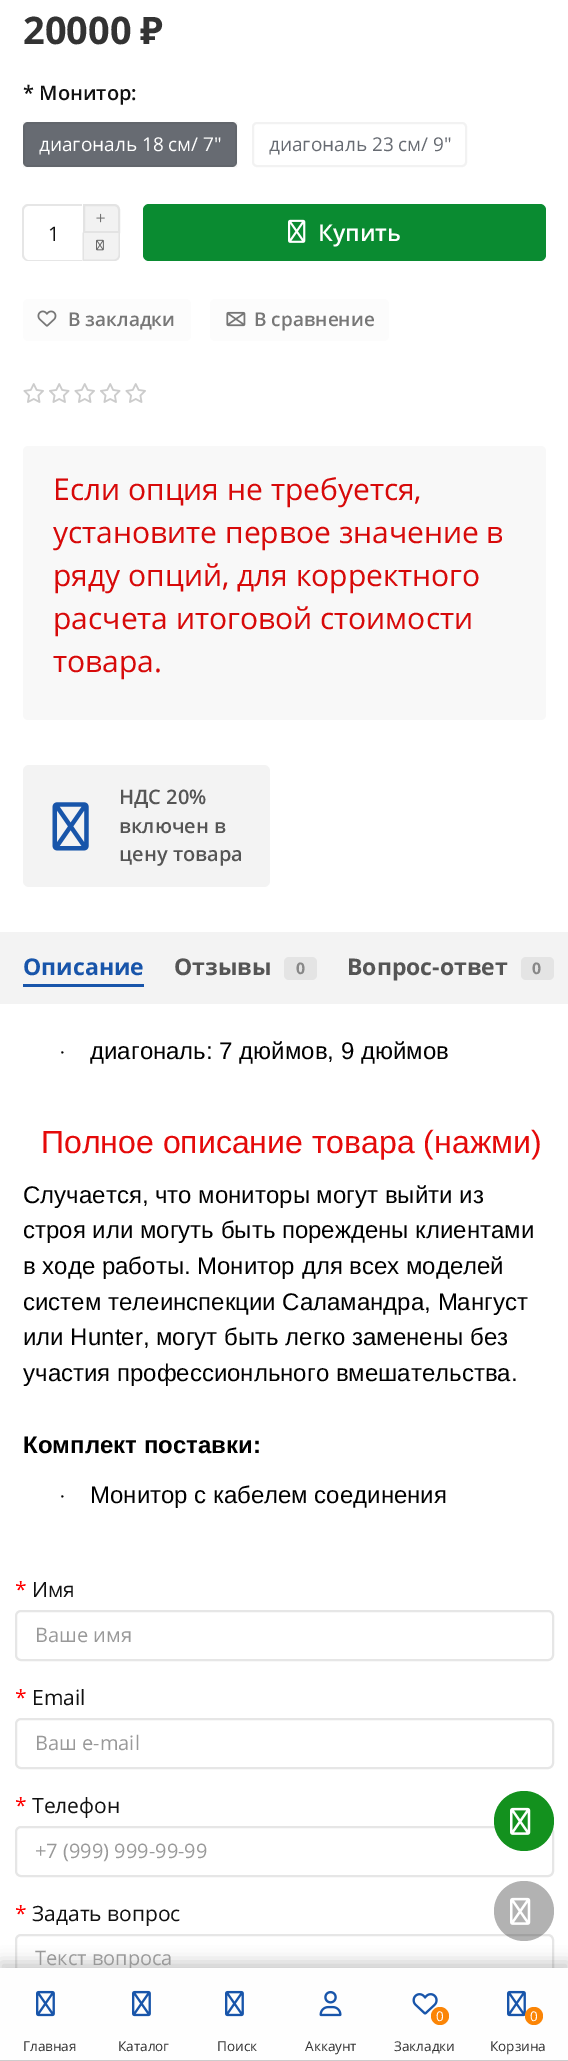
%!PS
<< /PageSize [568 2061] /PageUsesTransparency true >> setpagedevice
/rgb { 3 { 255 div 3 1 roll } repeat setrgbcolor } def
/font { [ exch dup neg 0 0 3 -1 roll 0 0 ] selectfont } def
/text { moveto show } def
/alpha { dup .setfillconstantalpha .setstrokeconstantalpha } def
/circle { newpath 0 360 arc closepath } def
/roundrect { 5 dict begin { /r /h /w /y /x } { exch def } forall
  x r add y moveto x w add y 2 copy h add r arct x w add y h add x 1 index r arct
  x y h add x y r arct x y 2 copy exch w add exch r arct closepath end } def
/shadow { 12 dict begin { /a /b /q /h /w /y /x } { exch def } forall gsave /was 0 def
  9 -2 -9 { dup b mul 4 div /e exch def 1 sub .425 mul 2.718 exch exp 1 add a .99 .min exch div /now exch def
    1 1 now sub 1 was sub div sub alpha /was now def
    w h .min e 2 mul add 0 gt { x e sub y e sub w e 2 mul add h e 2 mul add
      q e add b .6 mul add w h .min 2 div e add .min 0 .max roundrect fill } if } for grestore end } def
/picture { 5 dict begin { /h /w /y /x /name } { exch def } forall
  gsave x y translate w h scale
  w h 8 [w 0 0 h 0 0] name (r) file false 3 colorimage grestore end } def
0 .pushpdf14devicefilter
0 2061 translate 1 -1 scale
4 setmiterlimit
255 255 255 rgb
0 0 568 2061 rectfill
103 107 114 rgb
23 122 214 45 5 roundrect fill
0.05 alpha
0 0 0 rgb
2 setlinewidth
24 123 212 43 rectstroke
1 alpha
242 242 242 rgb
253 123 213 43 4 roundrect stroke
230 230 230 rgb
28 204 moveto 54 0 rlineto 0 57 rlineto -54 0 rlineto -3 0 -6 -3 -6 -6 rcurveto 0 -45 rlineto 0 -3 3 -6 6 -6 rcurveto closepath 28 206 moveto 54 0 rlineto 0 54 rlineto -54 0 rlineto -2 0 -4 -3 -4 -5 rcurveto 0 -45 rlineto 0 -2 2 -4 4 -4 rcurveto closepath eofill
242 242 242 rgb
84 205 moveto 30 0 rlineto 3 0 5 2 5 5 rcurveto 0 22 rlineto -35 0 rlineto closepath gsave fill grestore
227 227 227 rgb
stroke
(img_01.rgb) 96 213 9 10 picture
242 242 242 rgb
83 233 moveto 37 0 rlineto 0 22 rlineto 0 3.5 -2.5 6 -6 6 rcurveto -31 0 rlineto closepath fill
227 227 227 rgb
82.5 232.5 moveto 37.5 0 rlineto 0 22.5 rlineto 0 3.5 -2.5 6 -6 6 rcurveto -31.5 0 rlineto closepath 84 232.5 moveto 34.5 0 rlineto 0 22.5 rlineto 0 2.5 -2 4.5 -4.5 4.5 rcurveto -30 0 rlineto closepath eofill
(img_02.rgb) 96 239 8 12 picture
10 139 49 rgb
143 204 403 57 6 roundrect fill
(img_03.rgb) 288 219 18 24 picture
252 252 252 rgb
23 299 168 42 5 roundrect fill
(img_04.rgb) 37 310 20 17 picture
210 299 179 42 5 roundrect fill
(img_05.rgb) 226 311 20 16 picture
(img_06.rgb) 23 383 21 20 picture
(img_07.rgb) 49 383 21 20 picture
(img_06.rgb) 74 383 21 20 picture
(img_07.rgb) 100 383 21 20 picture
(img_06.rgb) 125 383 21 20 picture
248 248 248 rgb
23 446 523 274 5 roundrect fill
243 243 243 rgb
23 765 247 122 6 roundrect fill
(img_08.rgb) 52 802 37 49 picture
0 932 568 72 rectfill
24 85 170 rgb
23 984 121 3 rectfill
228 228 228 rgb
284 957 33 23 5 roundrect fill
521 957 33 23 5 roundrect fill
230 230 230 rgb
16 1611 537 49 5 roundrect stroke
16 1719 537 49 5 roundrect stroke
16 1827 537 49 5 roundrect stroke
16 1935 537 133 5 roundrect stroke
19 145 30 rgb
524 1821 30 circle fill
(img_09.rgb) 510 1807 21 28 picture
0 0 0 rgb
0 1962 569 93 0 7.5 0.2 shadow
0.3 alpha
524 1911 30 circle fill
1 alpha
(img_10.rgb) 510 1897 21 28 picture
204 204 204 rgb
0 2060 568 1 rectfill
/OpenSans-Bold 38 font
51 51 51 rgb
(20000) 23 44 text
/NotoSans-Bold 38 font
(₽) 140 44 text
/OpenSans-SemiBold 20 font
17 17 17 rgb
(* Монитор:) 23 100 text
/OpenSans-Regular 19 font
255 255 255 rgb
(диагональ 18 см/ 7″) 39 151 text
103 107 114 rgb
(диагональ 23 см/ 9″) 269 151 text
/OpenSans-Regular 20 font
17 17 17 rgb
(1) 48 241 text
/OpenSans-SemiBold 23 font
255 255 255 rgb
(Купить) 318 241 text
/OpenSans-SemiBold 19 font
119 119 119 rgb
(В закладки) 68 326 text
(В сравнение) 254 326 text
/OpenSans-Regular 30 font
215 9 9 rgb
(Если опция не требуется,) 53 500 text
(установите первое значение в) 53 543 text
(ряду опций, для корректного) 53 586 text
(расчета итоговой стоимости) 53 629 text
(товара.) 53 672 text
/OpenSans-SemiBold 20 font
85 85 85 rgb
(НДС 20%) 119 804 text
(включен в) 119 833 text
(цену товара) 119 861 text
/OpenSans-Bold 23 font
24 85 170 rgb
(Описание) 23 975 text
85 85 85 rgb
(Отзывы) 174 975 text
/OpenSans-Bold 16 font
136 136 136 rgb
(0) 296 974 text
/OpenSans-Bold 23 font
85 85 85 rgb
(Вопрос-ответ) 347 975 text
/OpenSans-Bold 16 font
136 136 136 rgb
(0) 532 974 text
/LiberationSerif-Regular 20 font
0 0 0 rgb
(·) 59 1059 text
/LiberationSans-Regular 24 font
(диагональ: 7 дюймов, 9 дюймов) 90 1059 text
/LiberationSans-Regular 32 font
229 10 10 rgb
(Полное описание товара \(нажми\)) 41 1153 text
/LiberationSans-Regular 24 font
0 0 0 rgb
(Случается, что мониторы могут выйти из) 23 1203 text
(строя или могуть быть пореждены клиентами) 23 1238 text
(в ходе работы. Монитор для всех моделей) 23 1274 text
(систем телеинспекции Саламандра, Мангуст) 23 1310 text
(или Hunter, могут быть легко заменены без) 23 1345 text
(участия профессионльного вмешательства.) 23 1381 text
/LiberationSans-Bold 24 font
(Комплект поставки:) 23 1453 text
/LiberationSerif-Regular 20 font
(·) 59 1503 text
/LiberationSans-Regular 24 font
(Монитор с кабелем соединения) 90 1503 text
/OpenSans-Regular 21 font
255 0 0 rgb
(*) 15 1597 text
17 17 17 rgb
(Имя) 32 1597 text
/OpenSans-Regular 20 font
153 153 153 rgb
(Ваше имя) 35 1642 text
/OpenSans-Regular 21 font
255 0 0 rgb
(*) 15 1705 text
17 17 17 rgb
(Email) 32 1705 text
/OpenSans-Regular 20 font
153 153 153 rgb
(Ваш e-mail) 35 1750 text
/OpenSans-Regular 21 font
255 0 0 rgb
(*) 15 1813 text
17 17 17 rgb
(Телефон) 32 1813 text
/OpenSans-Regular 20 font
153 153 153 rgb
(+7 \(999\) 999-99-99) 35 1858 text
/OpenSans-Regular 21 font
255 0 0 rgb
(*) 15 1921 text
17 17 17 rgb
(Задать вопрос) 32 1921 text
/OpenSans-Regular 20 font
153 153 153 rgb
(Текст вопроса) 35 1965 text
254 254 254 rgb
0 1968 568 92 rectfill
(img_11.rgb) 36 1990 19 27 picture
/OpenSans-Regular 13.5 font
51 51 51 rgb
(Главная) 23 2051 text
(img_11.rgb) 132 1990 19 27 picture
(Каталог) 118 2051 text
(img_11.rgb) 225 1990 19 27 picture
(Поиск) 217 2051 text
(img_12.rgb) 319 1990 23 27 picture
(Аккаунт) 305 2051 text
(img_13.rgb) 412 1993 26 22 picture
251 133 6 rgb
440 2016 9 circle fill
255 255 255 rgb
(0) 436 2021 text
51 51 51 rgb
(Закладки) 394 2051 text
(img_11.rgb) 507 1990 19 27 picture
251 133 6 rgb
534 2016 9 circle fill
255 255 255 rgb
(0) 530 2021 text
51 51 51 rgb
(Корзина) 490 2051 text
.poppdf14devicefilter showpage
